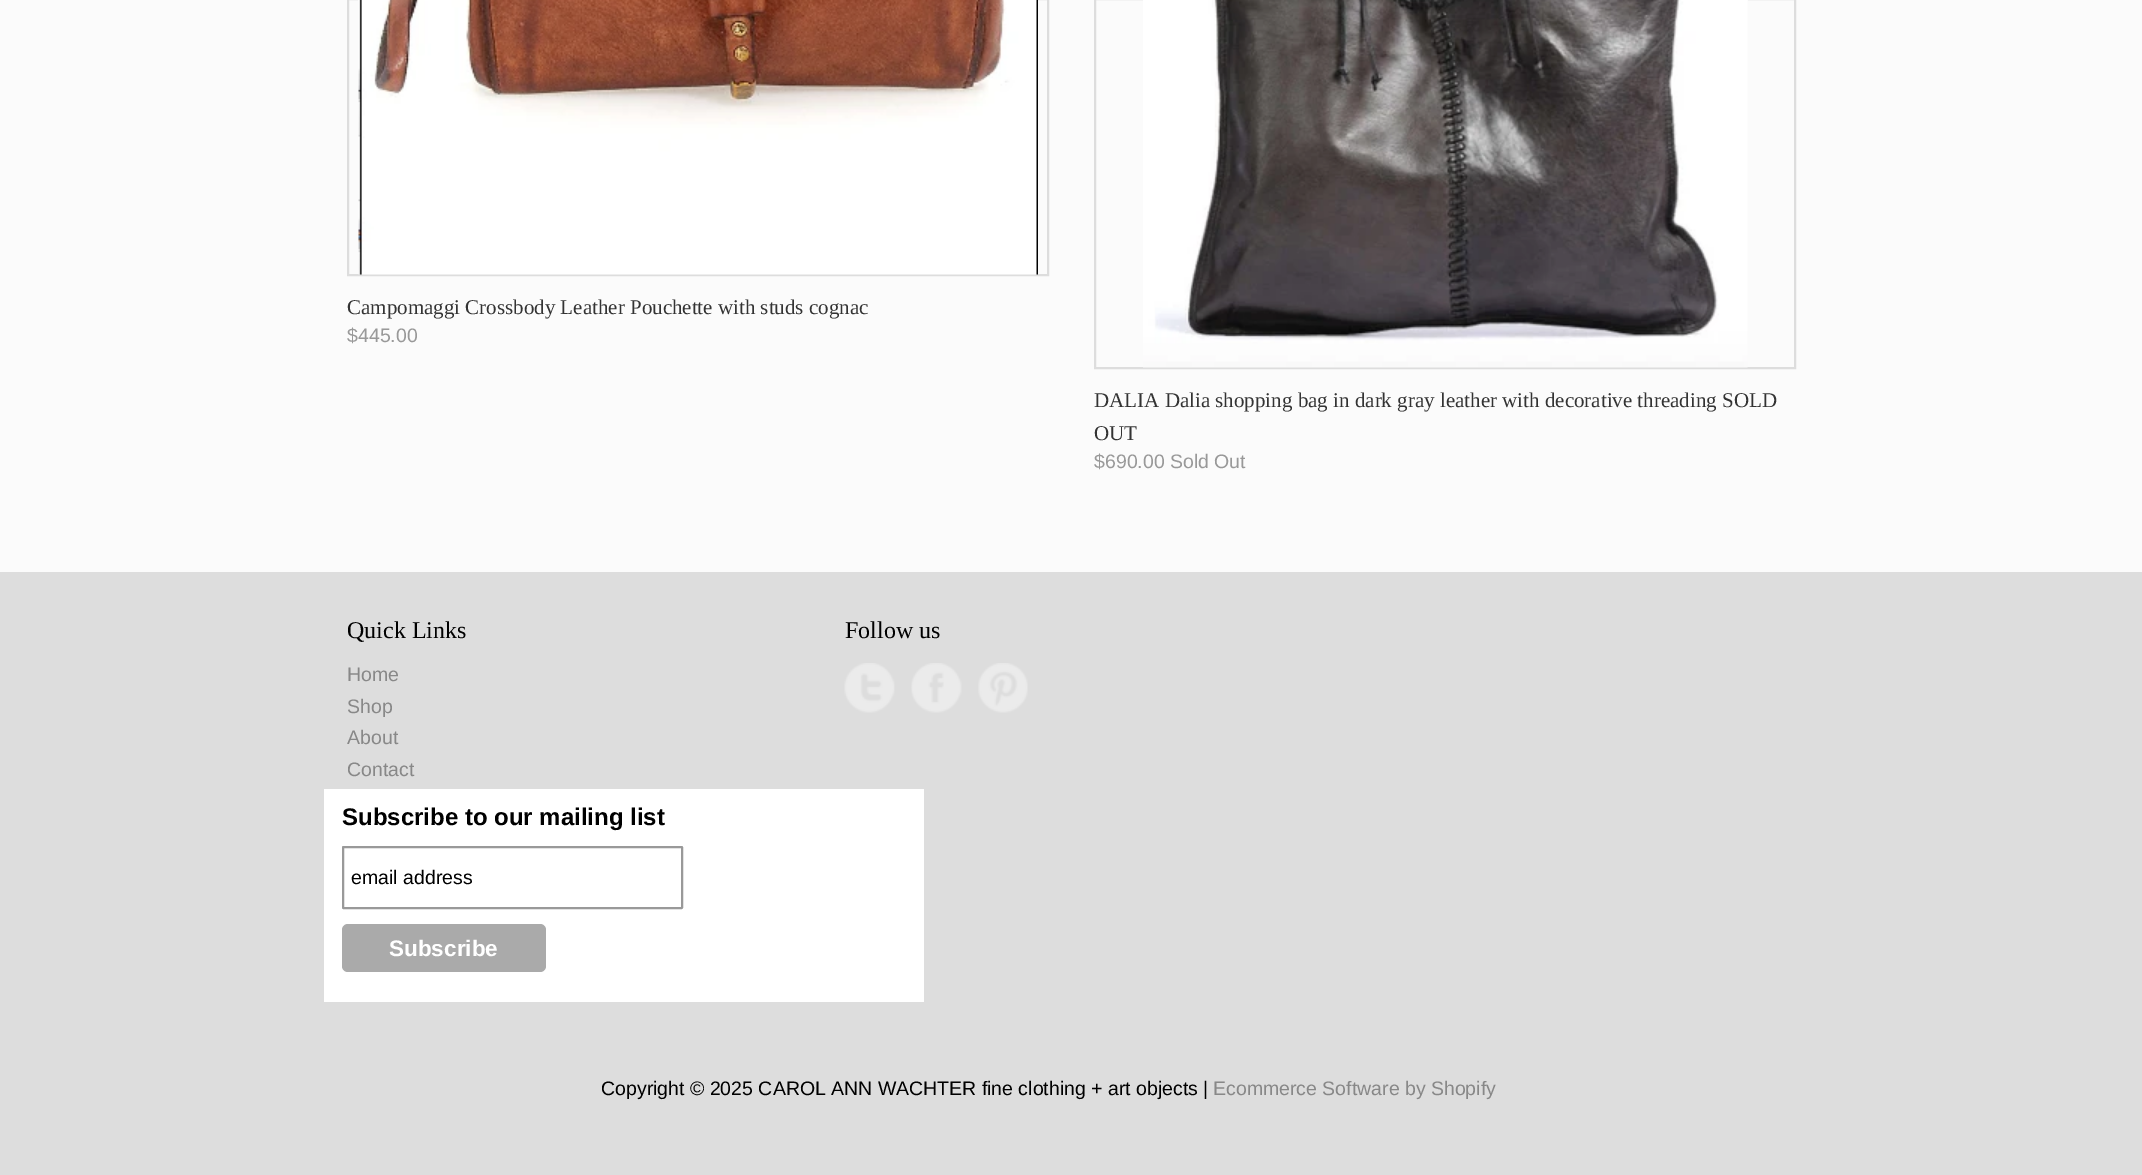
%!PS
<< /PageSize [2142 1175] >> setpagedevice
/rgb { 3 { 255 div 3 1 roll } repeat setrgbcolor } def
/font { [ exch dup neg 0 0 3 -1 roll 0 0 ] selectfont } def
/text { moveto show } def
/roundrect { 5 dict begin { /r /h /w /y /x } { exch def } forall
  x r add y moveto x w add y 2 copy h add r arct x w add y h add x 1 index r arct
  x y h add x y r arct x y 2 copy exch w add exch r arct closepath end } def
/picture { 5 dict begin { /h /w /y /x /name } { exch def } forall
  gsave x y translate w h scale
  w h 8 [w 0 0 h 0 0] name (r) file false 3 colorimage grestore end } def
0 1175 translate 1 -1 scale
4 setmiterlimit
251 251 251 rgb
0 0 2142 1175 rectfill
221 221 221 rgb
2 setlinewidth
348 -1 700 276 rectstroke
(img_01.rgb) 358 0 680 275 picture
1095 -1 700 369 rectstroke
(img_02.rgb) 1143 0 605 368 picture
0 572 2142 603 rectfill
(img_03.rgb) 844 663 51 50 picture
(img_04.rgb) 911 663 51 50 picture
(img_05.rgb) 978 663 50 50 picture
255 255 255 rgb
324 789 600 213 rectfill
153 153 153 rgb
343 847 339 61 0.5 roundrect stroke
170 170 170 rgb
342 924 204 48 6 roundrect fill
/LiberationSerif-Regular 21 font
51 51 51 rgb
(Campomaggi Crossbody Leather Pouchette with studs cognac) 347 314 text
/LiberationSans-Regular 19.5 font
153 153 153 rgb
($445.00) 347 342 text
/LiberationSerif-Regular 21 font
51 51 51 rgb
(DALIA Dalia shopping bag in dark gray leather with decorative threading SOLD) 1094 407 text
(OUT) 1094 440 text
/LiberationSans-Regular 19.5 font
153 153 153 rgb
($690.00 Sold Out) 1094 468 text
/LiberationSerif-Regular 24 font
0 0 0 rgb
(Quick Links) 347 638 text
/LiberationSans-Regular 19.5 font
136 136 136 rgb
(Home) 347 681 text
(Shop) 347 713 text
(About) 347 744 text
(Contact) 347 776 text
/LiberationSerif-Regular 24 font
0 0 0 rgb
(Follow us) 845 638 text
/LiberationSans-Bold 24 font
(Subscribe to our mailing list) 342 825 text
/LiberationSans-Regular 19.5 font
(email address) 351 884 text
/LiberationSans-Bold 22.5 font
255 255 255 rgb
(Subscribe) 389 956 text
/LiberationSans-Regular 19.5 font
0 0 0 rgb
(Copyright © 2025 CAROL ANN WACHTER fine clothing + art objects |) 601 1095 text
136 136 136 rgb
(Ecommerce Software by Shopify) 1213 1095 text
showpage
